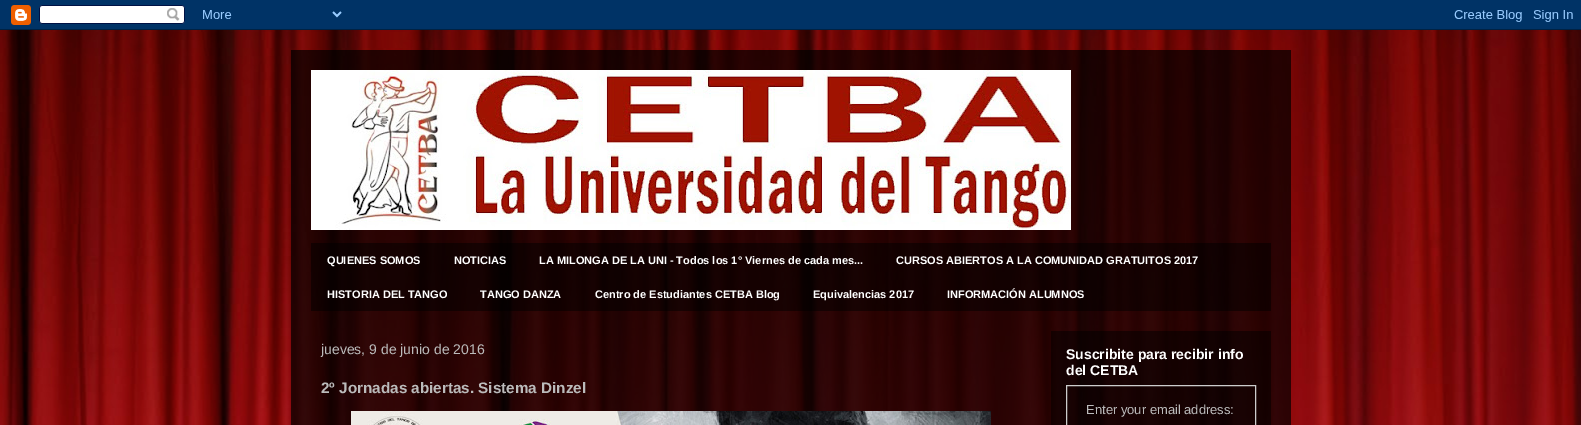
%!PS
<< /PageSize [1581 425] /PageUsesTransparency true >> setpagedevice
/rgb { 3 { 255 div 3 1 roll } repeat setrgbcolor } def
/font { [ exch dup neg 0 0 3 -1 roll 0 0 ] selectfont } def
/text { moveto show } def
/alpha { dup .setfillconstantalpha .setstrokeconstantalpha } def
/picture { 5 dict begin { /h /w /y /x /name } { exch def } forall
  gsave x y translate w h scale
  w h 8 [w 0 0 h 0 0] name (r) file false 3 colorimage grestore end } def
0 .pushpdf14devicefilter
0 425 translate 1 -1 scale
4 setmiterlimit
255 255 255 rgb
0 0 1581 425 rectfill
(img_01.rgb) 0 0 1581 30 picture
(img_02.rgb) 0 30 1581 395 picture
0.7 alpha
0 0 0 rgb
291 50 1000 375 rectfill
1 alpha
(img_03.rgb) 311 70 760 160 picture
0.5 alpha
311 243 960 68 rectfill
1051 331 220 94 rectfill
1 alpha
(img_04.rgb) 351 411 640 14 picture
204 204 204 rgb
1066.5 385.5 189 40 rectstroke
/LiberationSans-Bold 11 font
255 255 255 rgb
(QUIENES SOMOS) 327 264 text
(NOTICIAS) 454 264 text
(LA MILONGA DE LA UNI - Todos los 1° Viernes de cada mes...) 539 264 text
(CURSOS ABIERTOS A LA COMUNIDAD GRATUITOS 2017) 896 264 text
(HISTORIA DEL TANGO) 327 298 text
(TANGO DANZA) 480 298 text
(Centro de Estudiantes CETBA Blog) 595 298 text
(Equivalencias 2017) 813 298 text
(INFORMACIÓN ALUMNOS) 947 298 text
/LiberationSans-Regular 14 font
187 187 187 rgb
(jueves, 9 de junio de 2016) 321 354 text
/LiberationSans-Bold 15.25 font
(2º Jornadas abiertas. Sistema Dinzel) 321 393 text
/LiberationSans-Bold 14 font
255 255 255 rgb
(Suscribite para recibir info) 1066 359 text
(del CETBA) 1066 375 text
/LiberationSans-Regular 13 font
187 187 187 rgb
(Enter your email address:) 1086 414 text
.poppdf14devicefilter showpage
